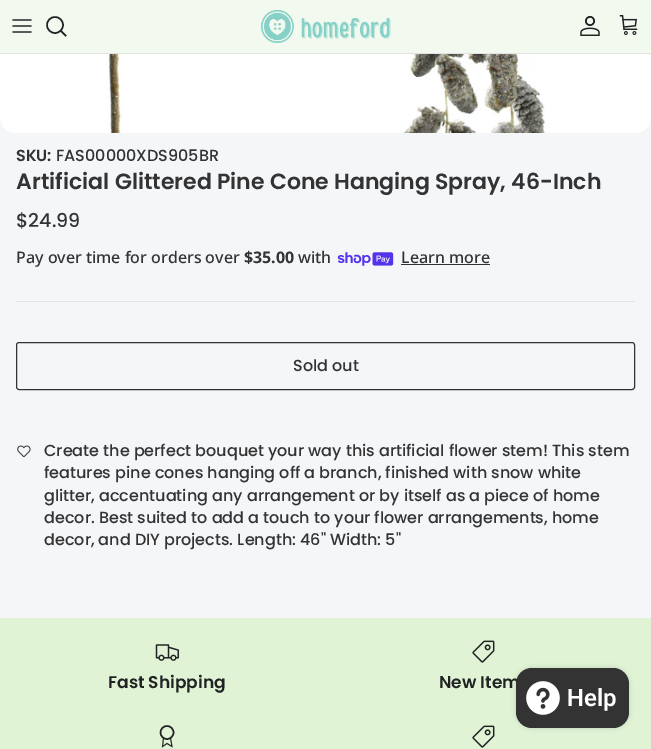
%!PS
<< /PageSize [651 749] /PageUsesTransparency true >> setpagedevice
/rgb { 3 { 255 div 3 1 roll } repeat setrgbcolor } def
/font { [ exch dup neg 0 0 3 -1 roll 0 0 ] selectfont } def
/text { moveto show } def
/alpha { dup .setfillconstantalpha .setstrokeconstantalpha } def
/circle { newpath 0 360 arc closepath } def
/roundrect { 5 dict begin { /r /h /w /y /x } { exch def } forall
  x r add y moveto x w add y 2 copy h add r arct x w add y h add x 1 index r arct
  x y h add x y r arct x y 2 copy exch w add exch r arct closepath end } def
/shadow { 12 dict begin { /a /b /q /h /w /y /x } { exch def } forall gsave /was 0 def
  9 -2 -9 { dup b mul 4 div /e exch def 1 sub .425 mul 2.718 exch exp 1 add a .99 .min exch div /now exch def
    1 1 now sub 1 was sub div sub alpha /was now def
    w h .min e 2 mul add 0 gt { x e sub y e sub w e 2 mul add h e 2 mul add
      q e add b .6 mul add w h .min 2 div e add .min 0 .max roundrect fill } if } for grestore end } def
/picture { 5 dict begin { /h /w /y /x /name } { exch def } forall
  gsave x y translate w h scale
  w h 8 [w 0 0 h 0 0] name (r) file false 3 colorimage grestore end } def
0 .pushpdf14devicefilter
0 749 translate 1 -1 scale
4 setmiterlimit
244 246 248 rgb
0 0 651 749 rectfill
242 250 240 rgb
0 0 651 53 rectfill
226 226 226 rgb
0 53 651 1 rectfill
(img_01.rgb) 12 19 20 14 picture
32 34 35 rgb
1.5 setlinewidth
55 25 8 circle stroke
2 setlinecap
61 31 moveto 4.5 4.5 rlineto stroke
(img_02.rgb) 260 10 131 33 picture
(img_03.rgb) 580 16 20 20 picture
(img_04.rgb) 619 15 19 20 picture
(img_05.rgb) 0 54 651 79 picture
(img_06.rgb) 337 252 57 14 picture
51 51 51 rgb
401 264 89 1 rectfill
226 226 226 rgb
16 301 619 1 rectfill
51 51 51 rgb
1 setlinewidth
0 setlinecap
16.5 342.5 618 47 2.5 roundrect stroke
(img_07.rgb) 17 445 14 13 picture
224 244 213 rgb
0 618 651 131 rectfill
(img_08.rgb) 155 644 24 17 picture
(img_09.rgb) 472 640 23 23 picture
32 34 35 rgb
1.5 setlinewidth
167 732.5 6.5 circle stroke
0.9 setlinewidth
163.5 738 moveto -1 8.5 rlineto 4.5 -3 rlineto 5 3 rlineto -1.5 -8.5 rlineto stroke
(img_09.rgb) 472 725 23 23 picture
0 0 0 rgb
516 668 113 60 16 2.5 0.15 shadow
/Poppins-SemiBold 16 font
51 51 51 rgb
(SKU:) 16 161 text
/Poppins-Medium 16 font
(FAS00000XDS905BR) 56 161 text
/Poppins-SemiBold 22 font
(Artificial Glittered Pine Cone Hanging Spray, 46-Inch) 16 189 text
/Poppins-Medium 19 font
($24.99) 16 227 text
/NotoSans-Medium 16 font
(Pay over time for orders over) 16 263 text
/NotoSans-Bold 16 font
($35.00) 244 263 text
/NotoSans-Medium 16 font
(with) 298 263 text
(Learn more) 401 263 text
/Poppins-Medium 16 font
(Sold out) 293 371 text
(Create the perfect bouquet your way this artificial flower stem! This stem) 44 456 text
(features pine cones hanging off a branch, finished with snow white) 44 478 text
(glitter, accentuating any arrangement or by itself as a piece of home) 44 501 text
(decor. Best suited to add a touch to your flower arrangements, home) 44 523 text
(decor, and DIY projects. Length: 46" Width: 5") 44 545 text
/Poppins-SemiBold 17 font
32 34 35 rgb
(Fast Shipping) 108 688 text
(New Item) 439 688 text
51 51 51 rgb
516 668 113 60 16 roundrect fill
(img_10.rgb) 526 681 34 34 picture
/Roboto-SemiBold 24 font
255 255 255 rgb
(Help) 567 706 text
.poppdf14devicefilter showpage
